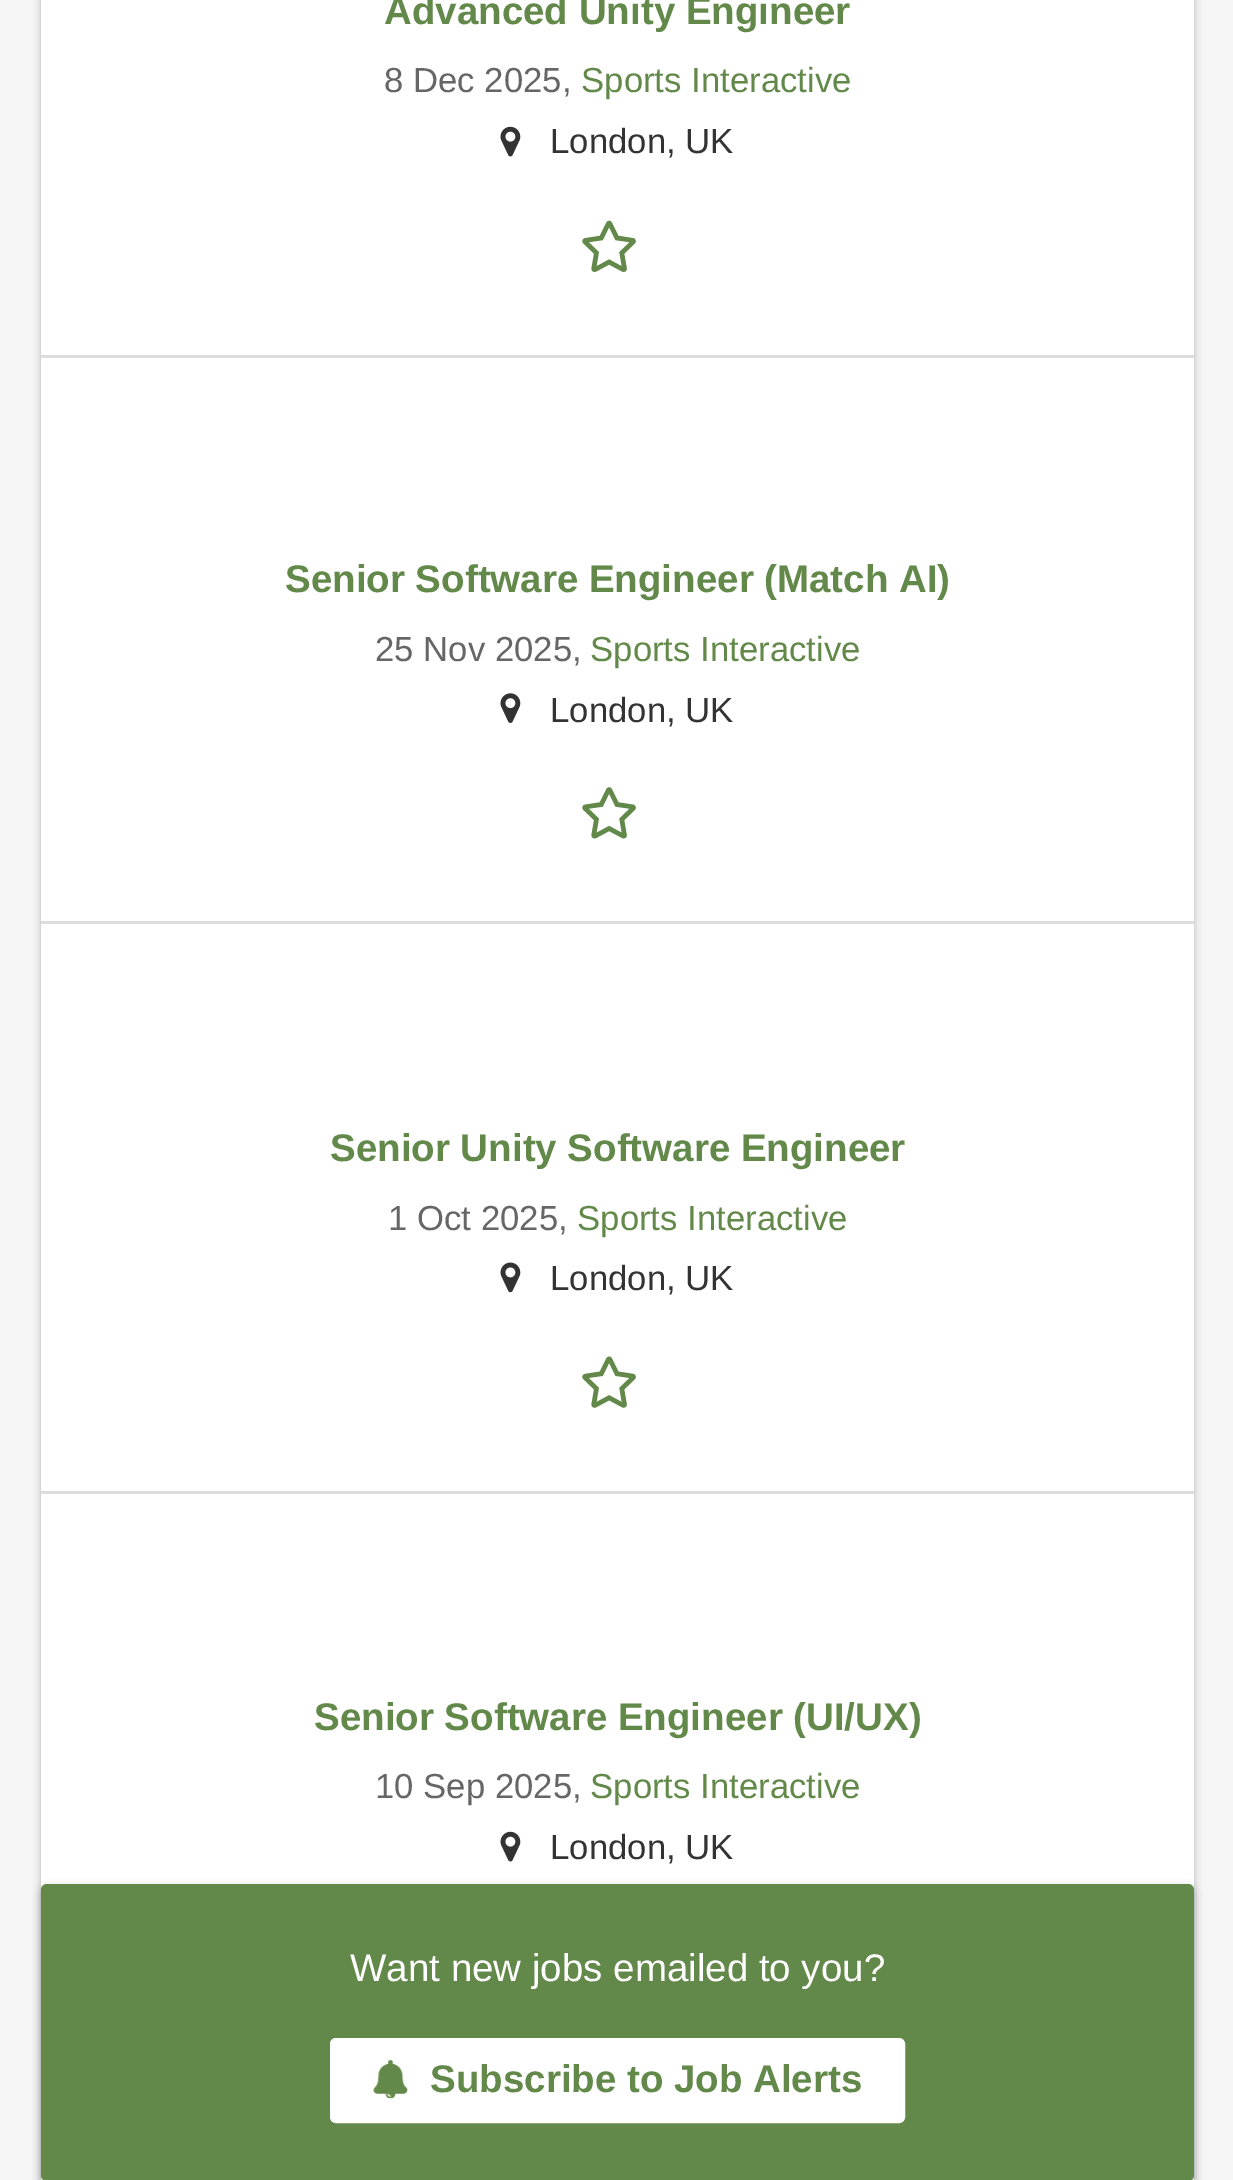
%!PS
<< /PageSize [1233 2180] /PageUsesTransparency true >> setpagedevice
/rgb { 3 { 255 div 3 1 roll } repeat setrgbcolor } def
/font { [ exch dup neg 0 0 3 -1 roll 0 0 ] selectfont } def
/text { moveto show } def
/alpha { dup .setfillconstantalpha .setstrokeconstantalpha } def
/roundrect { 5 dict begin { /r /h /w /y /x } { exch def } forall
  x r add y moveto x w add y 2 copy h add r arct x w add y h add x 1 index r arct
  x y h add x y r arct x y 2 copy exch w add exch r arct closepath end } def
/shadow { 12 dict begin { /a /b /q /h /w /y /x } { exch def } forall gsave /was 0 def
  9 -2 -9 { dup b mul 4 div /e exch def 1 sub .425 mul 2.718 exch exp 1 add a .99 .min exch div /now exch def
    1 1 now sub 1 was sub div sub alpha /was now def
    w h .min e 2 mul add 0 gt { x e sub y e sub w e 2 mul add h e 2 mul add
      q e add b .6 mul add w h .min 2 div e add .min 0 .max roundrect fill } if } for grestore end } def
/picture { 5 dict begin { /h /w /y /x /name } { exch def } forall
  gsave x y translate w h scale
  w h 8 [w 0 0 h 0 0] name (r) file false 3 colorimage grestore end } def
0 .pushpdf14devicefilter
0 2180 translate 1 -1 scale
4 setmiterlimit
245 245 245 rgb
0 0 1233 2180 rectfill
0 0 0 rgb
41 -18 1153 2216 6 4 0.25 shadow
255 255 255 rgb
41 0 1153 2180 rectfill
(img_01.rgb) 500 126 21 31 picture
(img_02.rgb) 582 220 54 52 picture
221 221 221 rgb
41 355 1153 3 rectfill
(img_03.rgb) 500 693 21 30 picture
(img_04.rgb) 582 787 54 52 picture
41 921 1153 3 rectfill
(img_05.rgb) 500 1262 21 31 picture
(img_06.rgb) 582 1356 54 52 picture
41 1491 1153 3 rectfill
(img_01.rgb) 500 1831 21 31 picture
0 0 0 rgb
41 1887 1153 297 6 4 0.25 shadow
99 137 74 rgb
41 1884 1153 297 6 roundrect fill
255 255 255 rgb
331.5 2039.5 572 82 4.5 roundrect gsave fill grestore
3 setlinewidth
stroke
(img_07.rgb) 373 2060 35 39 picture
/LiberationSans-Bold 38.5 font
99 137 74 rgb
(Advanced Unity Engineer) 384 24 text
/LiberationSans-Regular 34.75 font
102 102 102 rgb
(8 Dec 2025,) 384 92 text
99 137 74 rgb
(Sports Interactive) 581 92 text
51 51 51 rgb
(London, UK) 550 153 text
/LiberationSans-Bold 38.5 font
99 137 74 rgb
(Senior Software Engineer \(Match AI\)) 285 592 text
/LiberationSans-Regular 34.75 font
102 102 102 rgb
(25 Nov 2025,) 375 661 text
99 137 74 rgb
(Sports Interactive) 590 661 text
51 51 51 rgb
(London, UK) 550 722 text
/LiberationSans-Bold 38.5 font
99 137 74 rgb
(Senior Unity Software Engineer) 330 1161 text
/LiberationSans-Regular 34.75 font
102 102 102 rgb
(1 Oct 2025,) 388 1230 text
99 137 74 rgb
(Sports Interactive) 577 1230 text
51 51 51 rgb
(London, UK) 550 1290 text
/LiberationSans-Bold 38.5 font
99 137 74 rgb
(Senior Software Engineer \(UI/UX\)) 314 1730 text
/LiberationSans-Regular 34.75 font
102 102 102 rgb
(10 Sep 2025,) 375 1798 text
99 137 74 rgb
(Sports Interactive) 590 1798 text
51 51 51 rgb
(London, UK) 550 1859 text
/LiberationSans-Regular 38.5 font
255 255 255 rgb
(Want new jobs emailed to you?) 350 1981 text
/LiberationSans-Bold 38.5 font
99 137 74 rgb
(Subscribe to Job Alerts) 430 2092 text
.poppdf14devicefilter showpage
